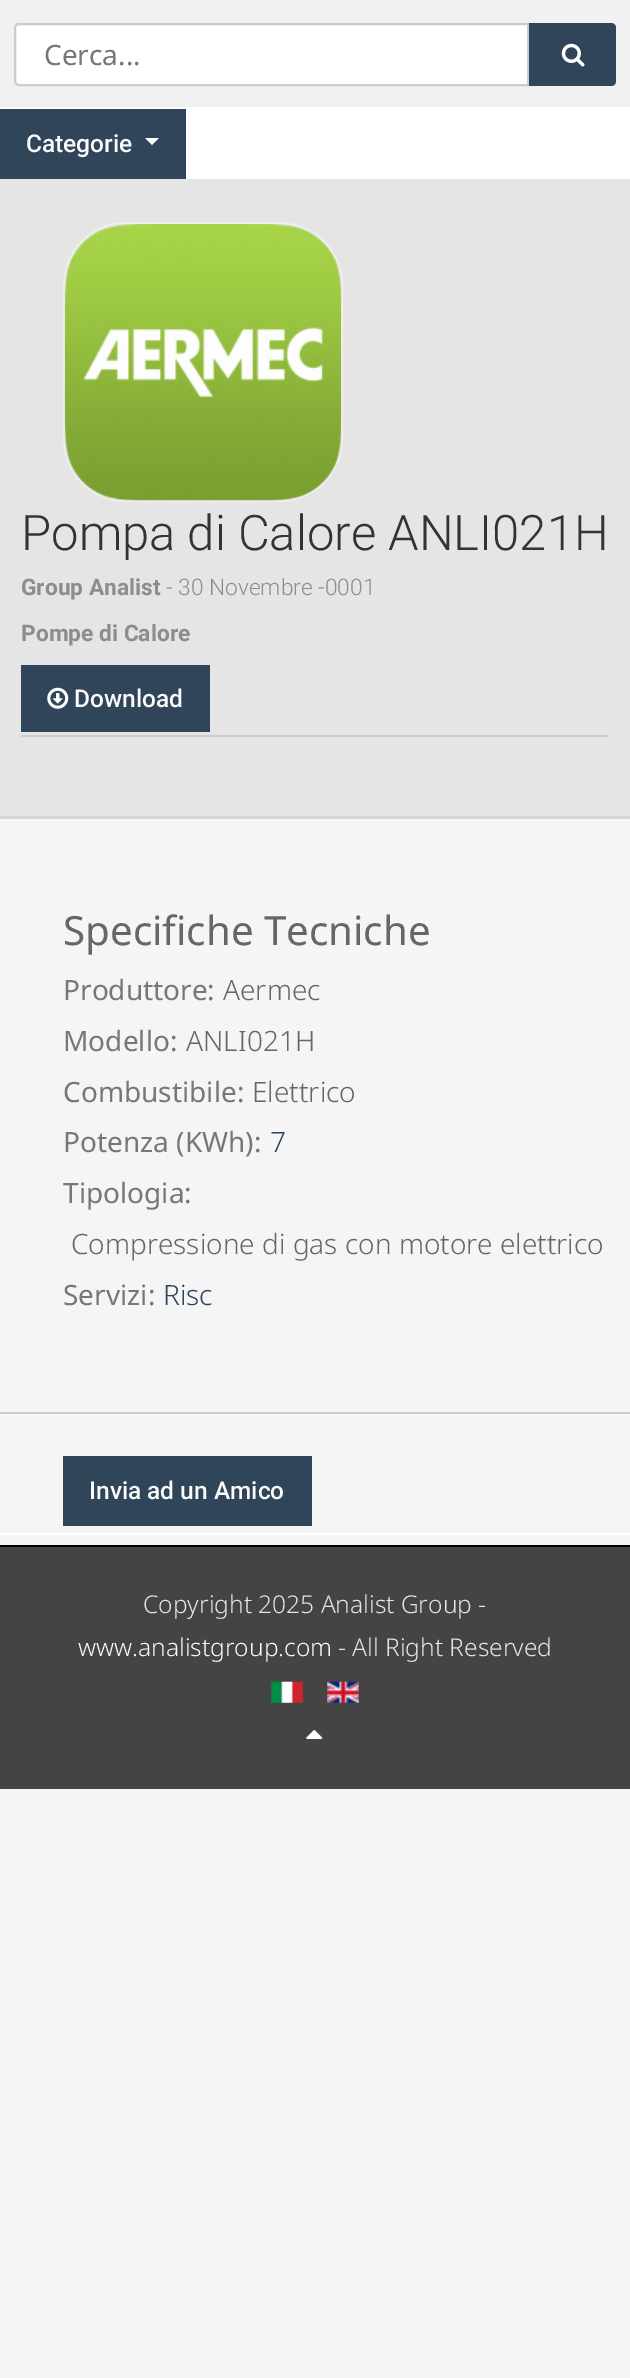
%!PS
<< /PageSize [630 2378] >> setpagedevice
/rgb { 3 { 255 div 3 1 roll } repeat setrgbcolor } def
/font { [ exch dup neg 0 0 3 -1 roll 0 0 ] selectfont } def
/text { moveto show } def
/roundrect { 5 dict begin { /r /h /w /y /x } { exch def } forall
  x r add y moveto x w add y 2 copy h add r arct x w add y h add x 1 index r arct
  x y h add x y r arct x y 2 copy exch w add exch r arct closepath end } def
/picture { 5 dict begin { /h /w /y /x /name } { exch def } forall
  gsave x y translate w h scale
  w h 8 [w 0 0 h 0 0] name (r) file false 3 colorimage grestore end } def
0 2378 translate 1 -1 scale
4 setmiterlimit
245 245 245 rgb
0 0 630 2378 rectfill
241 241 241 rgb
0 0 630 107 rectfill
255 255 255 rgb
19 24 moveto 509 0 rlineto 0 61 rlineto -509 0 rlineto -2 0 -4 -2 -4 -4 rcurveto 0 -53 rlineto 0 -2 2 -4 4 -4 rcurveto closepath gsave fill grestore
204 204 204 rgb
2 setlinewidth
stroke
48 69 89 rgb
529 23 moveto 82 0 rlineto 3 0 5 2 5 5 rcurveto 0 53 rlineto 0 3 -2 5 -5 5 rcurveto -82 0 rlineto closepath fill
(img_01.rgb) 561 43 24 24 picture
255 255 255 rgb
0 107 630 2 rectfill
0 1533 630 2 rectfill
186 109 444 70 rectfill
48 69 89 rgb
0 109 186 70 rectfill
255 255 255 rgb
145 138 moveto 14 0 rlineto -7 7 rlineto closepath fill
229 229 229 rgb
0 179 630 637 rectfill
214 214 214 rgb
0 816 630 3 rectfill
238 238 238 rgb
64 223 278 278 62 roundrect stroke
(img_02.rgb) 64 224 278 277 picture
48 69 89 rgb
21 665 189 67 rectfill
(img_03.rgb) 47 687 22 22 picture
204 204 204 rgb
21 735 588 2 rectfill
0 1412 630 2 rectfill
48 69 89 rgb
63 1456 249 70 rectfill
68 68 68 rgb
0 1547 630 242 rectfill
0 0 0 rgb
0 1545 630 2 rectfill
(img_04.rgb) 271 1681 32 22 picture
(img_05.rgb) 327 1681 32 22 picture
(img_06.rgb) 306 1730 17 9 picture
/NotoSans-Regular 28 font
119 119 119 rgb
(Cerca...) 44 65 text
/Roboto-Medium 24.5 font
250 250 250 rgb
(Categorie) 26 152 text
/Roboto-Light 49 font
51 51 51 rgb
(Pompa di Calore ANLI021H) 21 550 text
/Roboto-Bold 22.75 font
141 141 141 rgb
(Group Analist) 21 595 text
/Roboto-Light 22.75 font
(- 30 Novembre -0001) 166 595 text
/Roboto-Bold 22.75 font
(Pompe di Calore) 21 641 text
/Roboto-Medium 24.5 font
250 250 250 rgb
(Download) 74 707 text
/NotoSans-Regular 40.25 font
102 102 102 rgb
(Specifiche Tecniche) 63 945 text
/NotoSans-Regular 28 font
119 119 119 rgb
(Produttore:) 63 1000 text
/NotoSans-Light 28 font
102 102 102 rgb
(Aermec) 223 1000 text
/NotoSans-Regular 28 font
119 119 119 rgb
(Modello:) 63 1051 text
/NotoSans-Light 28 font
102 102 102 rgb
(ANLI021H) 186 1051 text
/NotoSans-Regular 28 font
119 119 119 rgb
(Combustibile:) 63 1102 text
/NotoSans-Light 28 font
102 102 102 rgb
(Elettrico) 252 1102 text
/NotoSans-Regular 28 font
119 119 119 rgb
(Potenza \(KWh\):) 63 1152 text
/NotoSans-Light 28 font
48 69 89 rgb
(7) 270 1152 text
/NotoSans-Regular 28 font
119 119 119 rgb
(Tipologia:) 63 1203 text
/NotoSans-Light 28 font
102 102 102 rgb
(Compressione di gas con motore elettrico) 71 1254 text
/NotoSans-Regular 28 font
119 119 119 rgb
(Servizi:) 63 1305 text
/NotoSans-Light 28 font
48 69 89 rgb
(Risc) 163 1305 text
/Roboto-Medium 24.5 font
250 250 250 rgb
(Invia ad un Amico) 89 1499 text
/NotoSans-Light 24.5 font
229 229 229 rgb
(Copyright 2025 Analist Group -) 143 1613 text
250 250 250 rgb
(www.analistgroup.com) 78 1656 text
229 229 229 rgb
(- All Right Reserved) 338 1656 text
showpage
